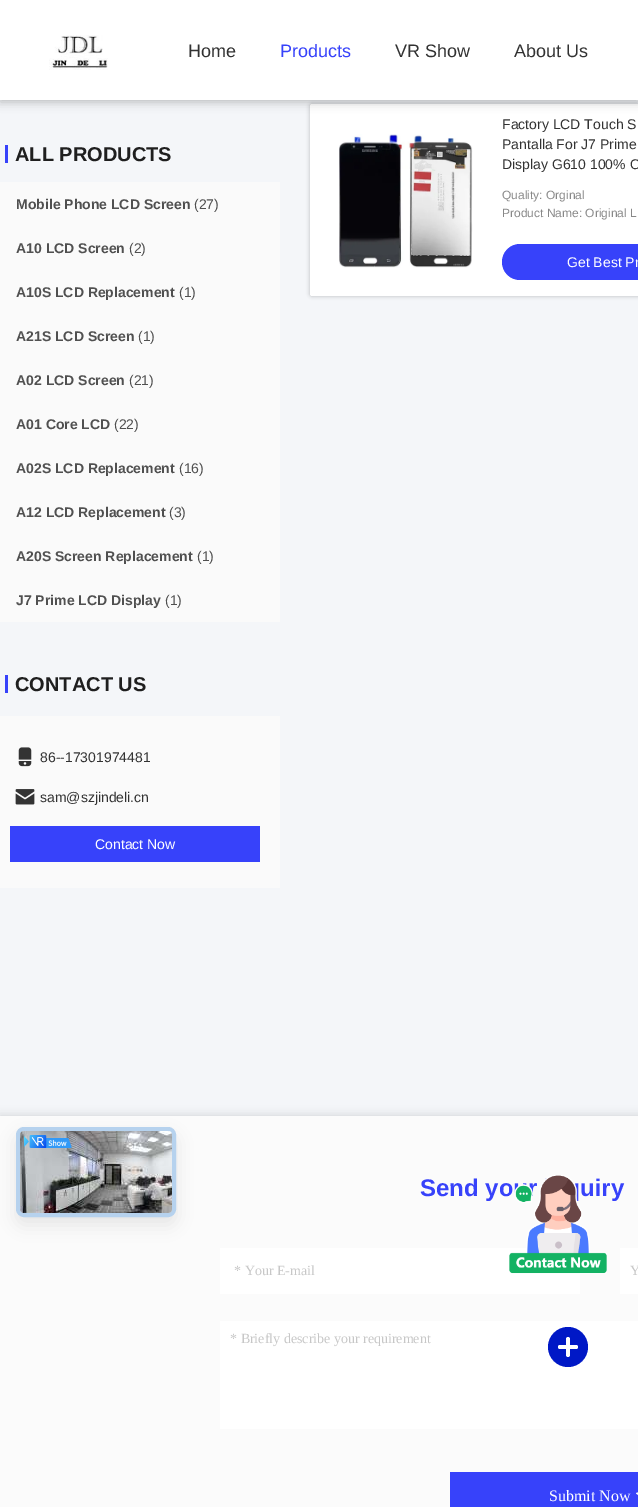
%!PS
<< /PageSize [638 1507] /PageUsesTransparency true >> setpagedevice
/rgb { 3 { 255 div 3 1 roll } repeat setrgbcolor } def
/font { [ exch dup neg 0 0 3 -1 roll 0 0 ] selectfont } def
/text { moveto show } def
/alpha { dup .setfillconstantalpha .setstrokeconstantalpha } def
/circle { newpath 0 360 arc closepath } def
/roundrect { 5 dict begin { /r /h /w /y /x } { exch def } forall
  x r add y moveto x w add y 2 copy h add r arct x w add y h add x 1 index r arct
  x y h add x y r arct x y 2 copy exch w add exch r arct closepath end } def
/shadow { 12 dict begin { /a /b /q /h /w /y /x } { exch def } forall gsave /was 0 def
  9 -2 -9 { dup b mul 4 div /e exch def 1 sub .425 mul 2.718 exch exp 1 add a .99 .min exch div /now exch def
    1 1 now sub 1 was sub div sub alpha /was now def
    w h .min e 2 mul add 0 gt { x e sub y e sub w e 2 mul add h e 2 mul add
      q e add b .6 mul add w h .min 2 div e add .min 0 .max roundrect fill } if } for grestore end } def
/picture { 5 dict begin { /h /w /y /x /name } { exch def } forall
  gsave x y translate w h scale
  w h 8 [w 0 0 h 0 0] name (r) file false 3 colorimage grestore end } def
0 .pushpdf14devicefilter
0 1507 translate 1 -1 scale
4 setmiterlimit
244 246 249 rgb
0 0 638 1507 rectfill
0 0 0 rgb
310 104 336 192 2 2 0.25 shadow
255 255 255 rgb
312 104 moveto 326 0 rlineto 0 192 rlineto -326 0 rlineto -1 0 -2 -1 -2 -2 rcurveto 0 -188 rlineto 0 -1 1 -2 2 -2 rcurveto closepath fill
0 0 0 rgb
0 2 638 100 0 5 0.25 shadow
255 255 255 rgb
0 0 638 100 rectfill
(img_01.rgb) 49 35 59 35 picture
55 66 250 rgb
5 145 3 18 rectfill
250 250 250 rgb
0 182 280 440 rectfill
55 66 250 rgb
5 675 3 18 rectfill
250 250 250 rgb
0 716 280 172 rectfill
(img_02.rgb) 18 747 14 20 picture
(img_03.rgb) 15 789 20 16 picture
55 66 250 rgb
10 826 250 36 rectfill
(img_04.rgb) 339 134 134 134 picture
520 244 moveto 118 0 rlineto 0 36 rlineto -118 0 rlineto -10 0 -18 -8 -18 -18 rcurveto 0 -10 8 -18 18 -18 rcurveto closepath fill
0 0 0 rgb
0 1116 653 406 0 5 0.15 shadow
251 251 251 rgb
0 1116 638 391 rectfill
255 255 255 rgb
220 1248 360 46 rectfill
620 1248 18 46 rectfill
220 1321 418 108 rectfill
55 66 250 rgb
450 1472 188 35 rectfill
(img_05.rgb) 636 1492 2 3 picture
0 0 0 rgb
16 1135 160 90 8 8 0.08 shadow
238 238 238 rgb
16 1127 160 90 8 roundrect fill
0.24 alpha
4 120 237 rgb
4 setlinewidth
18 1129 156 86 6 roundrect stroke
1 alpha
(img_06.rgb) 20 1131 152 82 picture
(img_07.rgb) 24 1135 48 13 picture
0 24 198 rgb
568 1347 20 circle fill
255 255 255 rgb
558 1345 20 4 2 roundrect fill
570 1339 moveto 0 16 rlineto 0 1 -1 2 -2 2 rcurveto -1 0 -2 -1 -2 -2 rcurveto 0 -16 rlineto 0 -1 1 -2 2 -2 rcurveto 1 0 2 1 2 2 rcurveto closepath fill
/LiberationSans-Regular 18 font
50 50 50 rgb
(Home) 188 57 text
55 66 250 rgb
(Products) 280 57 text
50 50 50 rgb
(VR Show) 395 57 text
(About Us) 514 57 text
/LiberationSans-Bold 20 font
31 31 31 rgb
(ALL PRODUCTS) 15 161 text
/LiberationSans-Bold 14 font
80 80 80 rgb
(Mobile Phone LCD Screen) 16 209 text
/LiberationSans-Regular 14 font
(\(27\)) 194 209 text
/LiberationSans-Bold 14 font
(A10 LCD Screen) 16 253 text
/LiberationSans-Regular 14 font
(\(2\)) 129 253 text
/LiberationSans-Bold 14 font
(A10S LCD Replacement) 16 297 text
/LiberationSans-Regular 14 font
(\(1\)) 179 297 text
/LiberationSans-Bold 14 font
(A21S LCD Screen) 16 341 text
/LiberationSans-Regular 14 font
(\(1\)) 138 341 text
/LiberationSans-Bold 14 font
(A02 LCD Screen) 16 385 text
/LiberationSans-Regular 14 font
(\(21\)) 129 385 text
/LiberationSans-Bold 14 font
(A01 Core LCD) 16 429 text
/LiberationSans-Regular 14 font
(\(22\)) 114 429 text
/LiberationSans-Bold 14 font
(A02S LCD Replacement) 16 473 text
/LiberationSans-Regular 14 font
(\(16\)) 179 473 text
/LiberationSans-Bold 14 font
(A12 LCD Replacement) 16 517 text
/LiberationSans-Regular 14 font
(\(3\)) 169 517 text
/LiberationSans-Bold 14 font
(A20S Screen Replacement) 16 561 text
/LiberationSans-Regular 14 font
(\(1\)) 197 561 text
/LiberationSans-Bold 14 font
(J7 Prime LCD Display) 16 605 text
/LiberationSans-Regular 14 font
(\(1\)) 165 605 text
/LiberationSans-Bold 20 font
31 31 31 rgb
(CONTACT US) 15 691 text
/LiberationSans-Regular 14 font
50 50 50 rgb
(86--17301974481) 40 762 text
(sam@szjindeli.cn) 40 802 text
255 255 255 rgb
(Contact Now) 95 849 text
50 50 50 rgb
(Factory LCD Touch S) 502 129 text
(Pantalla For J7 Prime) 502 149 text
(Display G610 100% O) 502 169 text
/LiberationSans-Regular 12 font
136 136 136 rgb
(Quality: Orginal) 502 199 text
(Product Name: Original L) 502 217 text
/LiberationSans-Regular 14 font
255 255 255 rgb
(Get Best Pr) 567 267 text
/LiberationSans-Bold 24 font
55 66 250 rgb
(Send yo) 420 1196 text
(uiry) 580 1196 text
/LiberationSerif-Regular 14 font
199 199 199 rgb
(* Your E-mail) 234 1275 text
(Y) 630 1275 text
(* Briefly describe your requirement) 230 1343 text
/LiberationSerif-Regular 16 font
255 255 255 rgb
(Submit Now) 549 1501 text
(img_08.rgb) 509 1175 98 99 picture
.poppdf14devicefilter showpage
